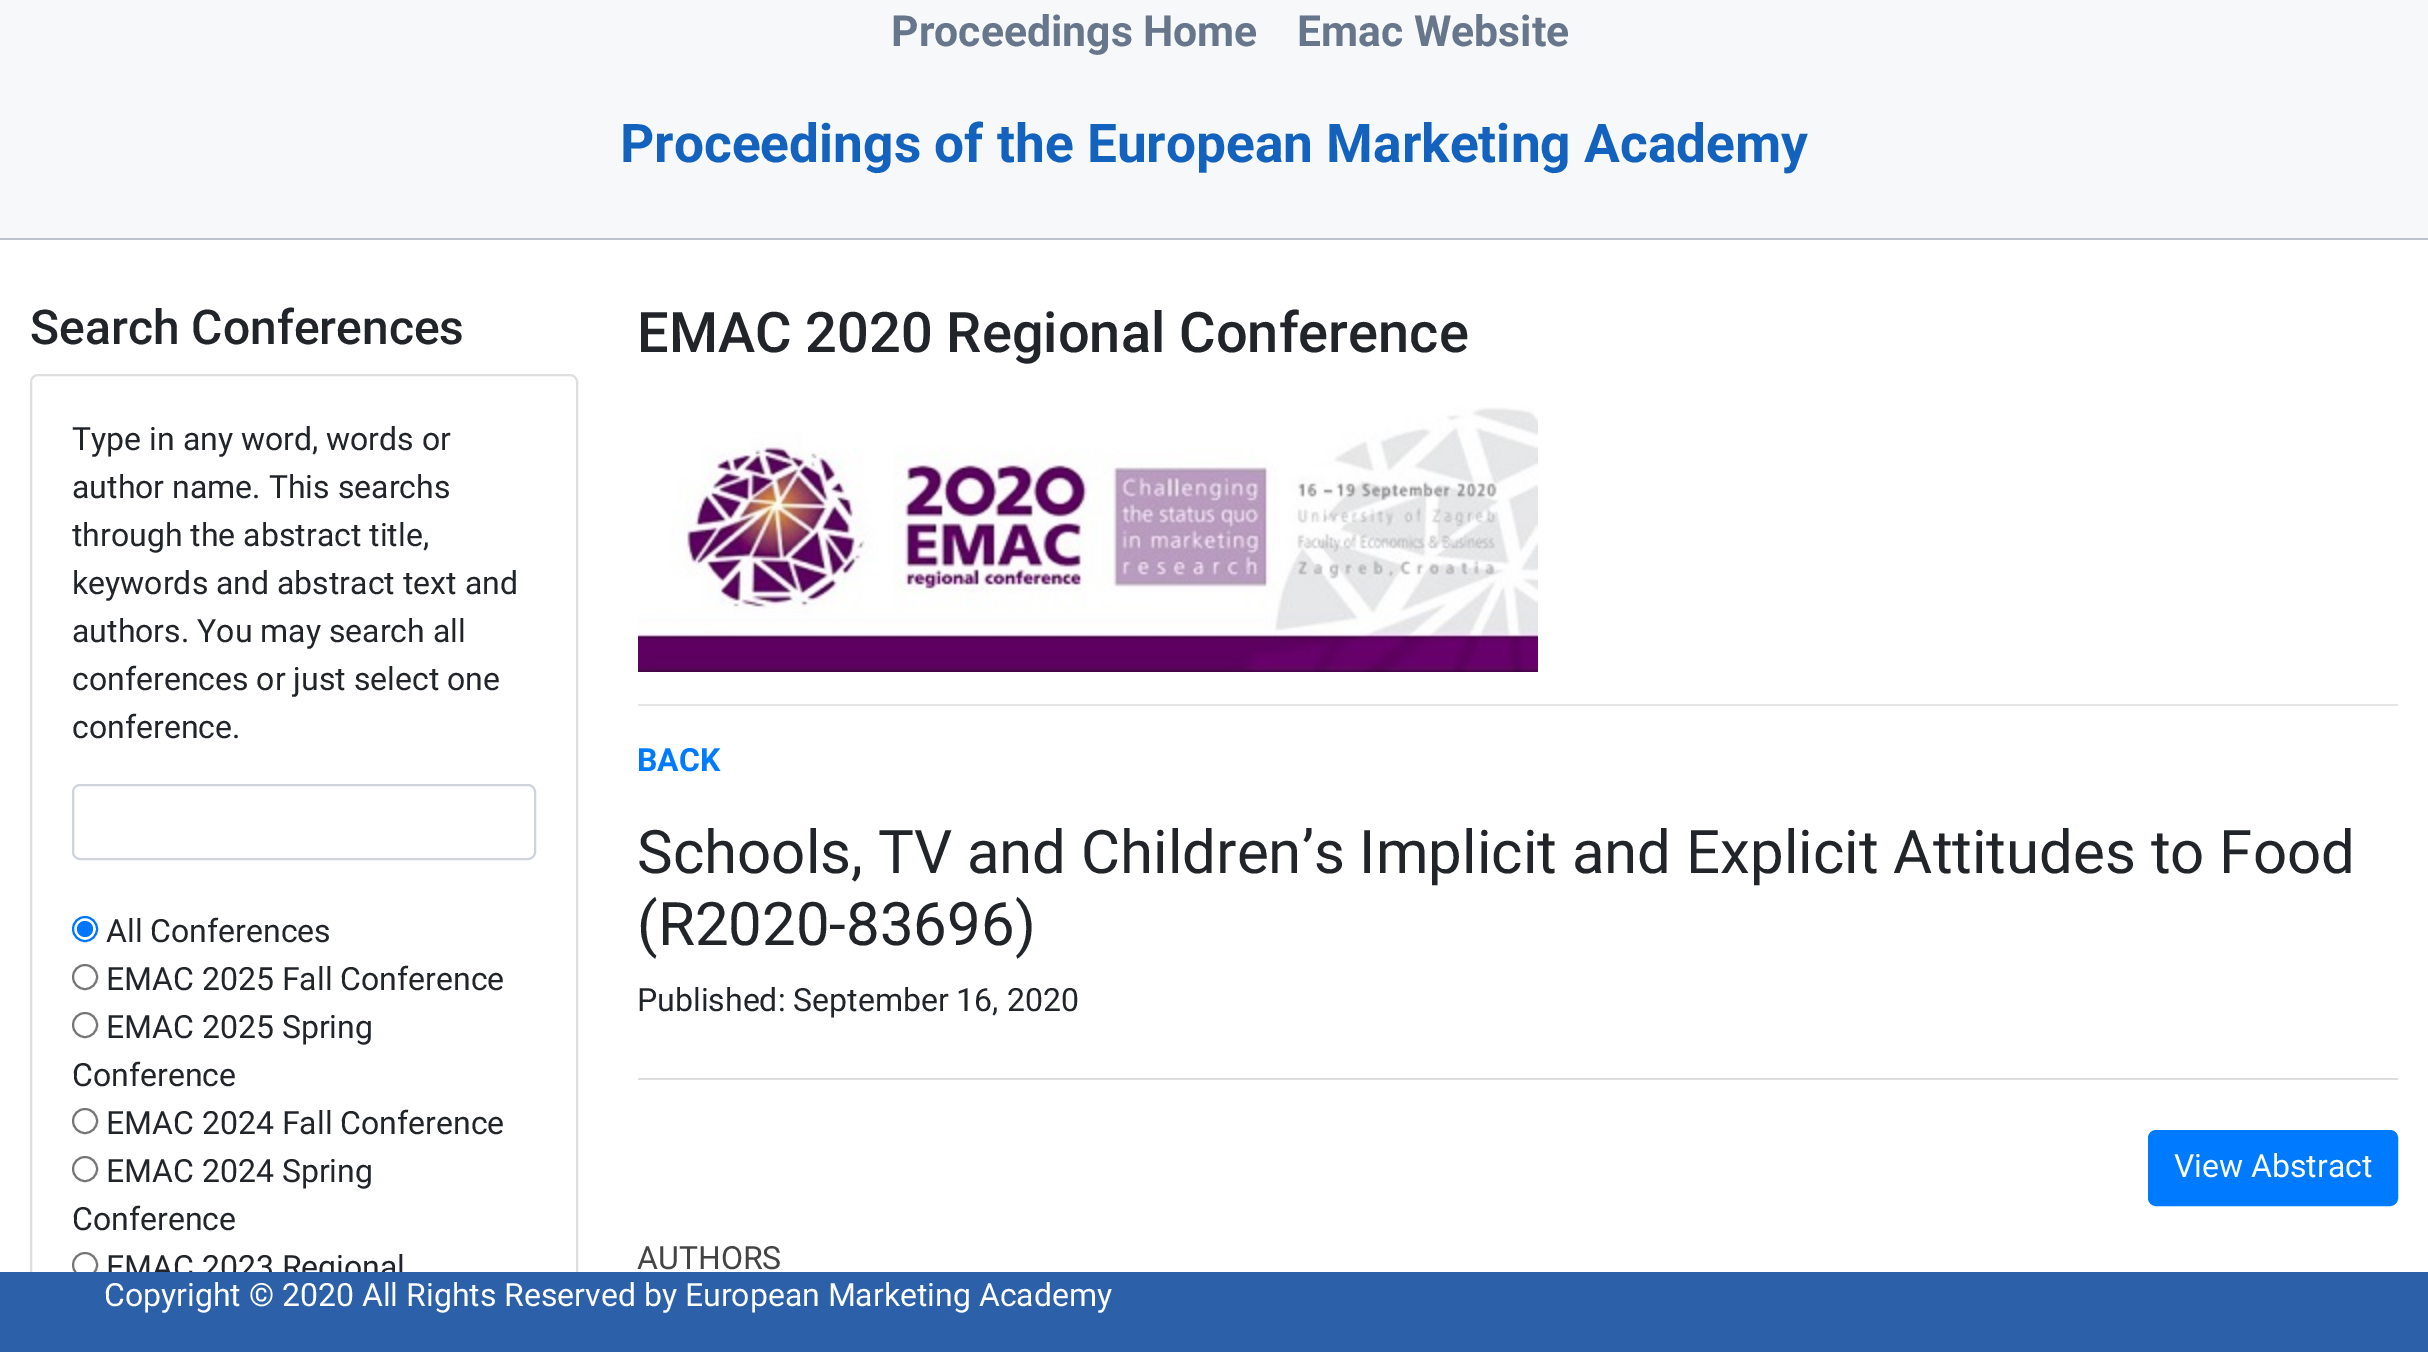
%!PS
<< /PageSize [2428 1352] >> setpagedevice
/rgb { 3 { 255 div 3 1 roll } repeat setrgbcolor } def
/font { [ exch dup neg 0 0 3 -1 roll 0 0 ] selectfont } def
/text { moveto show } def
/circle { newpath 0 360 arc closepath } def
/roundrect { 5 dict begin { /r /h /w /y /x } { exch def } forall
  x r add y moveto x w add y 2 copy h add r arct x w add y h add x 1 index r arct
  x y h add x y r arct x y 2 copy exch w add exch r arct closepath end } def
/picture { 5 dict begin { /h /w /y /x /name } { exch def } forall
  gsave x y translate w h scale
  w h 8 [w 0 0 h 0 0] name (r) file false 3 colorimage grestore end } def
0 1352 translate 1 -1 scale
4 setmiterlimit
255 255 255 rgb
0 0 2428 1352 rectfill
247 248 249 rgb
0 0 2428 238 rectfill
188 195 202 rgb
0 238 2428 2 rectfill
223 223 223 rgb
2 setlinewidth
31 375 546 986 7 roundrect stroke
206 212 218 rgb
73 785 462 74 7 roundrect stroke
0 117 255 rgb
85 929 12 circle stroke
85 929 8 circle fill
118 118 118 rgb
85 977 12 circle stroke
85 1025 12 circle stroke
85 1121 12 circle stroke
85 1169 12 circle stroke
85 1265 12 circle stroke
(img_01.rgb) 638 407 900 265 picture
230 230 230 rgb
638 704 1760 2 rectfill
221 221 221 rgb
638 1078 1760 2 rectfill
0 123 255 rgb
2149 1131 248 74 7 roundrect gsave fill grestore
stroke
/Roboto-Bold 42.75 font
103 118 139 rgb
(Proceedings Home) 891 46 text
(Emac Website) 1297 46 text
/Roboto-Bold 53.3 font
19 99 190 rgb
(Proceedings of the European Marketing Academy) 620 162 text
/Roboto-Medium 48 font
33 37 41 rgb
(Search Conferences) 30 344 text
/Roboto-Regular 32 font
(Type in any word, words or) 72 450 text
(author name. This searchs) 72 498 text
(through the abstract title,) 72 546 text
(keywords and abstract text and) 72 594 text
(authors. You may search all) 72 642 text
(conferences or just select one) 72 690 text
(conference.) 72 738 text
(All Conferences) 106 942 text
(EMAC 2025 Fall Conference) 106 990 text
(EMAC 2025 Spring) 106 1038 text
(Conference) 72 1086 text
(EMAC 2024 Fall Conference) 106 1134 text
(EMAC 2024 Spring) 106 1182 text
(Conference) 72 1230 text
(EMAC 2023 Regional) 106 1278 text
/Roboto-Medium 56 font
(EMAC 2020 Regional Conference) 637 352 text
/Roboto-Bold 32 font
0 123 255 rgb
(BACK) 637 771 text
/Roboto-Regular 60 font
33 37 41 rgb
(Schools, TV and Children’s Implicit and Explicit Attitudes to Food) 637 873 text
(\(R2020-83696\)) 637 945 text
/Roboto-Regular 32 font
(Published: September 16, 2020) 637 1011 text
255 255 255 rgb
(View Abstract) 2174 1177 text
68 68 68 rgb
(AUTHORS) 637 1269 text
44 97 170 rgb
0 1272 2428 80 rectfill
255 255 255 rgb
(Copyright © 2020 All Rights Reserved by European Marketing Academy) 104 1306 text
showpage
